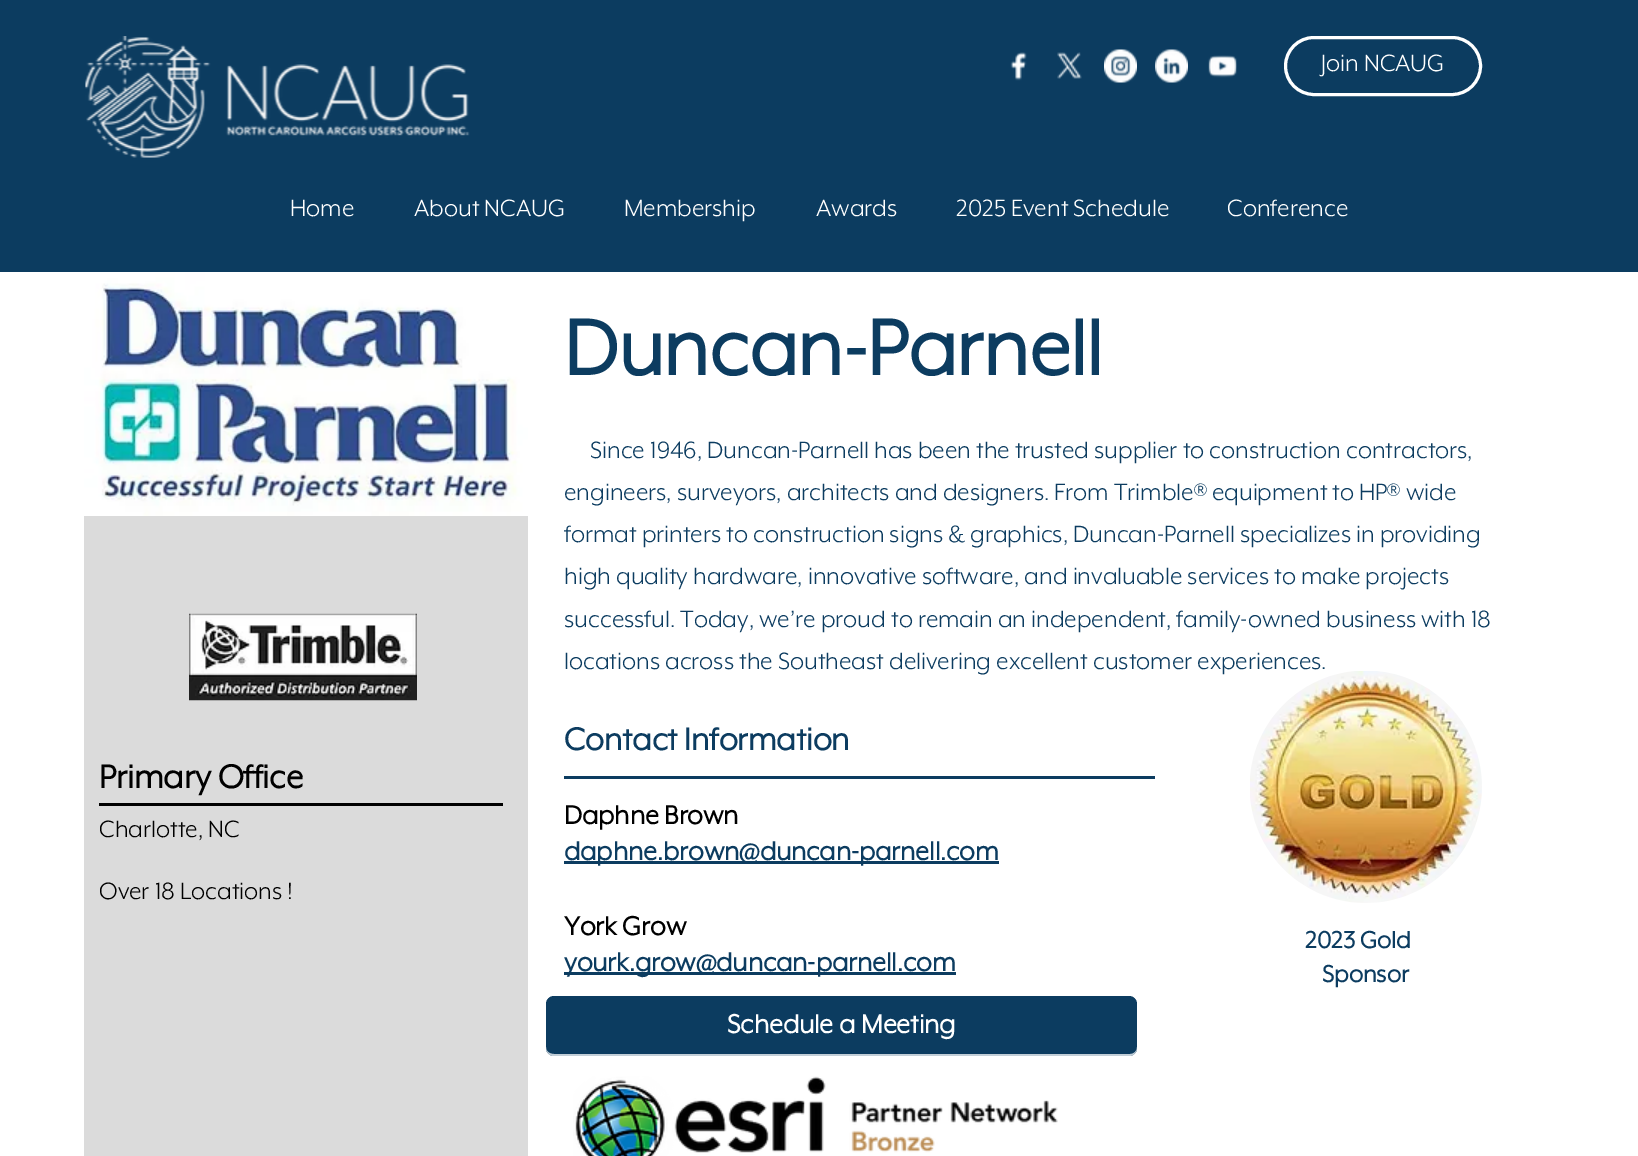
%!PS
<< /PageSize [1638 1156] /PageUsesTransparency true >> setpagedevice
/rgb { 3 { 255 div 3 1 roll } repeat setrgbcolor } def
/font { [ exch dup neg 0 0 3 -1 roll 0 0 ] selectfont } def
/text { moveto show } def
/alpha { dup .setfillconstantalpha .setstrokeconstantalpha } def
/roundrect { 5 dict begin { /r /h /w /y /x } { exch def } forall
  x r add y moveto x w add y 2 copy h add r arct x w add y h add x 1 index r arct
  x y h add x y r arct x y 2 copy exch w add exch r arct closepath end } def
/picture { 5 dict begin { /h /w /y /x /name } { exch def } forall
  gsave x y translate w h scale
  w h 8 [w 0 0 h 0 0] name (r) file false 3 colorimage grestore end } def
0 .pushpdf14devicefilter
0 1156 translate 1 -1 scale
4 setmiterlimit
255 255 255 rgb
0 0 1638 1156 rectfill
12 60 96 rgb
0 0 1638 272 rectfill
(img_01.rgb) 85 36 385 122 picture
(img_02.rgb) 1010 52 17 29 picture
(img_03.rgb) 1057 52 25 27 picture
(img_04.rgb) 1104 49 33 34 picture
(img_05.rgb) 1155 49 33 34 picture
(img_06.rgb) 1208 55 29 23 picture
255 255 255 rgb
3 setlinewidth
1285.5 37.5 195 57 28.5 roundrect stroke
(img_07.rgb) 84 272 444 244 picture
219 219 219 rgb
84 516 444 640 rectfill
(img_08.rgb) 189 613 228 88 picture
12 60 96 rgb
564 776 591 3 rectfill
0 0 0 rgb
99 803 404 3 rectfill
12 60 96 rgb
564 861 435 3 rectfill
564 972 392 3 rectfill
546 996 591 60 8 roundrect fill
0.75 alpha
255 255 255 rgb
546 1047 moveto 0 5 3 9 8 9 rcurveto 575 0 rlineto 5 0 8 -4 8 -9 rcurveto 0 4 -3 7 -7 7 rcurveto -576 0 rlineto -5 0 -8 -3 -8 -7 rcurveto closepath fill
1 alpha
(img_10.rgb) 573 1076 485 80 picture
/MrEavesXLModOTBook-Regular 27 font
(Join NCAUG) 1321 71 text
(Home) 290 216 text
(About NCAUG) 414 216 text
(Membership) 624 216 text
(Awards) 816 216 text
(2025 Event Schedule) 956 216 text
(Conference) 1227 216 text
/MrEavesXLModOTBook-Bold 90 font
12 60 96 rgb
(Duncan-Parnell) 564 375 text
/MrEavesXLModOTBook-Regular 27 font
(Since 1946, Duncan-Parnell has been the trusted supplier to construction contractors,) 590 458 text
(engineers, surveyors, architects and designers. From Trimble® equipment to HP® wide) 564 500 text
(format printers to construction signs & graphics, Duncan-Parnell specializes in providing) 564 542 text
(high quality hardware, innovative software, and invaluable services to make projects) 564 584 text
(successful. Today, we’re proud to remain an independent, family-owned business with 18) 564 627 text
(locations across the Southeast delivering excellent customer experiences.) 564 669 text
/MrEavesXLModOTBook-Bold 36 font
(Contact Information) 564 750 text
(img_09.rgb) 1250 671 232 232 picture
/MrEavesXLModOTBook-Bold 37.5 font
0 0 0 rgb
(Primary Office) 99 788 text
/MrEavesXLModOTBook-Regular 27 font
(Charlotte, NC) 99 837 text
/MrEavesXLModOTBook-Bold 30 font
(Daphne Brown) 564 824 text
12 60 96 rgb
(daphne.brown@duncan-parnell.com) 564 860 text
/MrEavesXLModOTBook-Regular 27 font
0 0 0 rgb
(Over 18 Locations !) 99 899 text
/MrEavesXLModOTBook-Bold 30 font
(York Grow) 564 935 text
12 60 96 rgb
(yourk.grow@duncan-parnell.com) 564 971 text
/MrEavesXLModOTBook-Bold 27 font
(2023 Gold) 1305 948 text
(Sponsor) 1322 982 text
/MrEavesXLModOTBook-Bold 30 font
255 255 255 rgb
(Schedule a Meeting) 727 1033 text
.poppdf14devicefilter showpage
